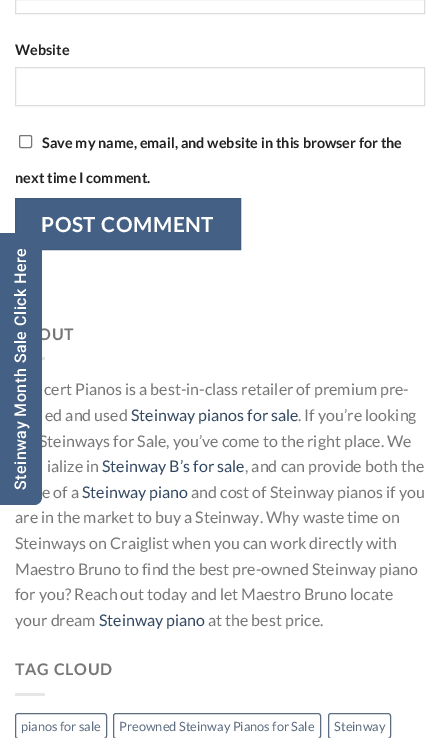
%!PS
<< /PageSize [440 738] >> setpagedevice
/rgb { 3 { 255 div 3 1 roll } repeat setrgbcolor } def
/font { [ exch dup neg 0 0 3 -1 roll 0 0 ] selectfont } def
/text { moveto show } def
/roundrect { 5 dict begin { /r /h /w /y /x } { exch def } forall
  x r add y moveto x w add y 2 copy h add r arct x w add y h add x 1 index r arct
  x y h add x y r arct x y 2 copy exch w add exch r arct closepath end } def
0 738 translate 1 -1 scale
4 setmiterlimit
255 255 255 rgb
0 0 440 738 rectfill
221 221 221 rgb
15.5 -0.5 409 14 rectstroke
15.5 67.5 409 38 rectstroke
118 118 118 rgb
19.5 135.5 12 12 1.5 roundrect stroke
68 96 132 rgb
15.5 198.5 moveto 225 0 rlineto 0 51 rlineto -225 0 rlineto closepath gsave fill grestore
65 91 125 rgb
stroke
230 230 230 rgb
42 357 3 3 rectfill
15 693 30 3 rectfill
92 109 129 rgb
15.5 713.5 91 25 2.5 roundrect stroke
113.5 713.5 207 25 2.5 roundrect stroke
328.5 713.5 62 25 2.5 roundrect stroke
/Lato-Bold 14.4 font
34 34 34 rgb
(Website) 15 55 text
(Save my name, email, and website in this browser for the) 42 148 text
(next time I comment.) 15 183 text
/Lato-Bold 20.75 font
255 255 255 rgb
41 232 moveto 0.6 0 (POST COMMENT) ashow
/Lato-Bold 16 font
119 119 119 rgb
38 340 moveto 0.75 0 (OUT) ashow
/Lato-Regular 16 font
(cert Pianos is a best-in-class retailer of premium pre-) 44 395 text
(ed and used) 45 421 text
51 72 98 rgb
(Steinway pianos for sale) 131 421 text
119 119 119 rgb
(. If you’re looking) 298 421 text
(Steinways for Sale, you’ve come to the right place. We) 39 447 text
(ialize in) 47 472 text
51 72 98 rgb
(Steinway B’s for sale) 102 472 text
119 119 119 rgb
(, and can provide both the) 245 472 text
(e of a) 42 498 text
51 72 98 rgb
(Steinway piano) 82 498 text
119 119 119 rgb
(and cost of Steinway pianos if you) 191 498 text
(are in the market to buy a Steinway. Why waste time on) 15 523 text
(Steinways on Craiglist when you can work directly with) 15 549 text
(Maestro Bruno to find the best pre-owned Steinway piano) 15 575 text
(for you? Reach out today and let Maestro Bruno locate) 15 600 text
(your dream) 15 626 text
51 72 98 rgb
(Steinway piano) 99 626 text
119 119 119 rgb
(at the best price.) 208 626 text
/Lato-Bold 16 font
15 675 moveto 0.75 0 (TAG CLOUD) ashow
/Lato-Regular 12.75 font
92 109 129 rgb
(pianos for sale) 21 731 text
(Preowned Steinway Pianos for Sale) 119 731 text
(Steinway) 334 731 text
68 96 132 rgb
0 505 moveto 0 -272 rlineto 34 0 rlineto 4 0 8 3 8 8 rcurveto 0 256 rlineto 0 5 -4 8 -8 8 rcurveto closepath fill
/Roboto-Medium 16 font
255 255 255 rgb
gsave 26 490 translate -90 rotate 0 0 moveto 0.5 0 (Steinway Month Sale Click Here) ashow grestore
showpage
